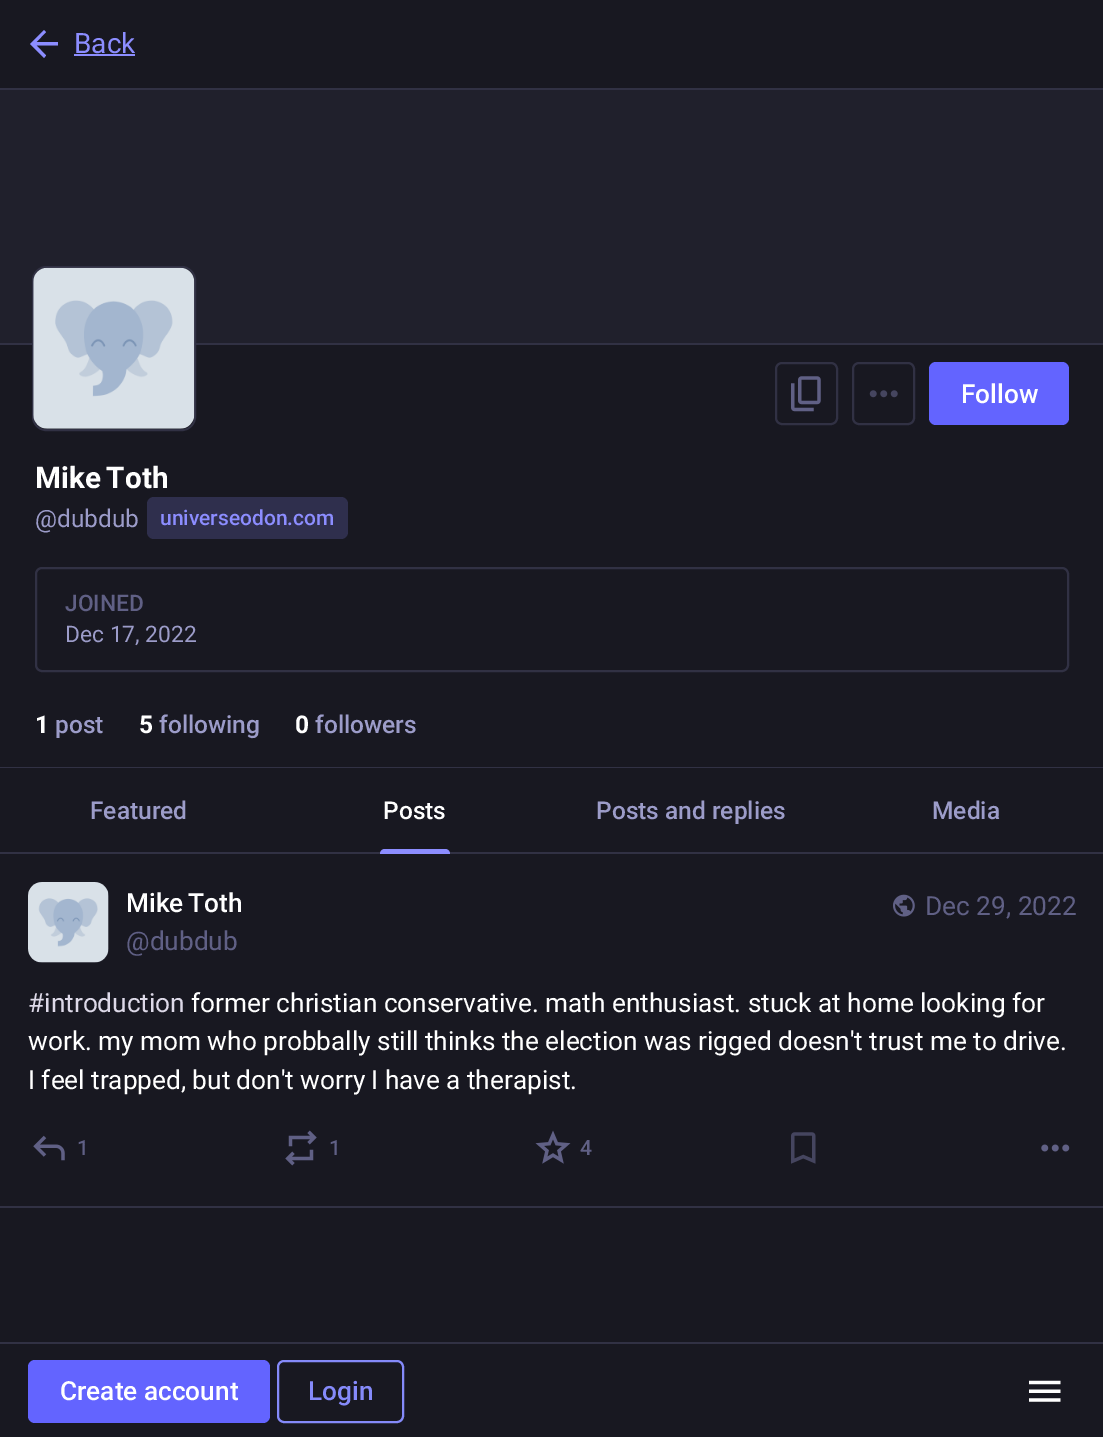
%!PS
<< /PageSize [1103 1437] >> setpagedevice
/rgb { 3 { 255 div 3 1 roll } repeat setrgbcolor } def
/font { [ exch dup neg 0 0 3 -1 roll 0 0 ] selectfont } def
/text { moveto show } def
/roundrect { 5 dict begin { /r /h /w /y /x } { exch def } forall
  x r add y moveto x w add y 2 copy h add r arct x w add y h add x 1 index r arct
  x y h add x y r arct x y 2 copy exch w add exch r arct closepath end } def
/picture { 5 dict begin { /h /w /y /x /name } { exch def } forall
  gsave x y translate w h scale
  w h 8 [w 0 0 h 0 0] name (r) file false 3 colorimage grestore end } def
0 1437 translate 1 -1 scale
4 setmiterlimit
24 24 33 rgb
0 0 1103 1437 rectfill
49 49 68 rgb
0 88 1103 2 rectfill
140 141 255 rgb
36.5 45.5 moveto 9.5 10 rlineto -2 2.5 rlineto -14 -14 rlineto 14 -14 rlineto 2 2 rlineto -9.5 10 rlineto 21.5 0 rlineto 0 3.5 rlineto closepath fill
74 54 61 2 rectfill
32 32 44 rgb
0 90 1103 253 rectfill
49 49 68 rgb
0 343 1103 2 rectfill
0 767 1103 1 rectfill
24 24 33 rgb
33 267 162 163 13 roundrect gsave fill grestore
49 49 68 rgb
2 setlinewidth
stroke
(img_01.rgb) 33 267 162 162 picture
776 363 61 61 6 roundrect stroke
(img_02.rgb) 791 376 30 36 picture
853 363 61 61 6 roundrect stroke
(img_03.rgb) 869 390 29 8 picture
99 100 255 rgb
929 362 140 63 7 roundrect fill
47 47 77 rgb
147 497 201 42 7 roundrect fill
49 49 68 rgb
36 568 1032 103 6 roundrect stroke
0 852 1103 2 rectfill
140 141 255 rgb
385 849 moveto 60 0 rlineto 3 0 5 2 5 5 rcurveto -70 0 rlineto 0 -3 2 -5 5 -5 rcurveto closepath fill
49 49 68 rgb
0 1206 1103 2 rectfill
32 32 44 rgb
28 882 81 81 14 roundrect fill
(img_04.rgb) 28 882 81 81 picture
(img_05.rgb) 893 894 22 23 picture
(img_06.rgb) 33 1135 32 26 picture
(img_07.rgb) 285 1130 32 36 picture
(img_08.rgb) 535 1130 36 34 picture
(img_09.rgb) 791 1132 25 32 picture
(img_10.rgb) 1041 1144 29 8 picture
49 49 68 rgb
0 1342 1103 2 rectfill
99 100 255 rgb
28 1360 242 63 7 roundrect fill
133 138 250 rgb
278 1361 125 61 6 roundrect stroke
(img_11.rgb) 1029 1380 32 22 picture
/Roboto-Regular 28 font
140 141 255 rgb
(Back) 74 53 text
/Roboto-Medium 26.25 font
255 255 255 rgb
(Follow) 961 403 text
/Roboto-Bold 29.75 font
35 488 moveto -2 0 32 (Mike Toth) widthshow
/Roboto-Regular 24.5 font
156 156 201 rgb
(@dubdub) 35 527 text
/Roboto-Medium 21 font
140 141 255 rgb
(universeodon.com) 160 525 text
/Roboto-Medium 22.75 font
96 96 133 rgb
(JOINED) 65 611 text
/Roboto-Regular 22.75 font
156 156 201 rgb
(Dec 17, 2022) 65 642 text
/Roboto-Bold 24.5 font
255 255 255 rgb
(1) 35 733 text
/Roboto-Medium 24.5 font
156 156 201 rgb
(post) 55 733 text
/Roboto-Bold 24.5 font
255 255 255 rgb
(5) 139 733 text
/Roboto-Medium 24.5 font
156 156 201 rgb
(following) 159 733 text
/Roboto-Bold 24.5 font
255 255 255 rgb
(0) 295 733 text
/Roboto-Medium 24.5 font
156 156 201 rgb
(followers) 315 733 text
(Featured) 90 819 text
255 255 255 rgb
(Posts) 383 819 text
156 156 201 rgb
(Posts and replies) 596 819 text
(Media) 932 819 text
/Roboto-Medium 26.25 font
255 255 255 rgb
126 912 moveto -2 0 32 (Mike Toth) widthshow
/Roboto-Regular 26.25 font
96 96 133 rgb
(@dubdub) 126 950 text
(Dec 29, 2022) 925 915 text
221 217 232 rgb
(#introduction) 28 1012 text
255 255 255 rgb
(former christian conservative. math enthusiast. stuck at home looking for) 191 1012 text
28 1050 moveto -0.1 0 32 (work. my mom who probbally still thinks the election was rigged doesn't trust me to drive.) widthshow
28 1089 moveto -0.25 0 32 (I feel trapped, but don't worry I have a therapist.) widthshow
/Roboto-Medium 21 font
96 96 133 rgb
(1) 77 1155 text
(1) 329 1155 text
(4) 580 1155 text
/Roboto-Medium 26.25 font
255 255 255 rgb
(Create account) 60 1400 text
133 138 250 rgb
(Login) 308 1400 text
showpage
